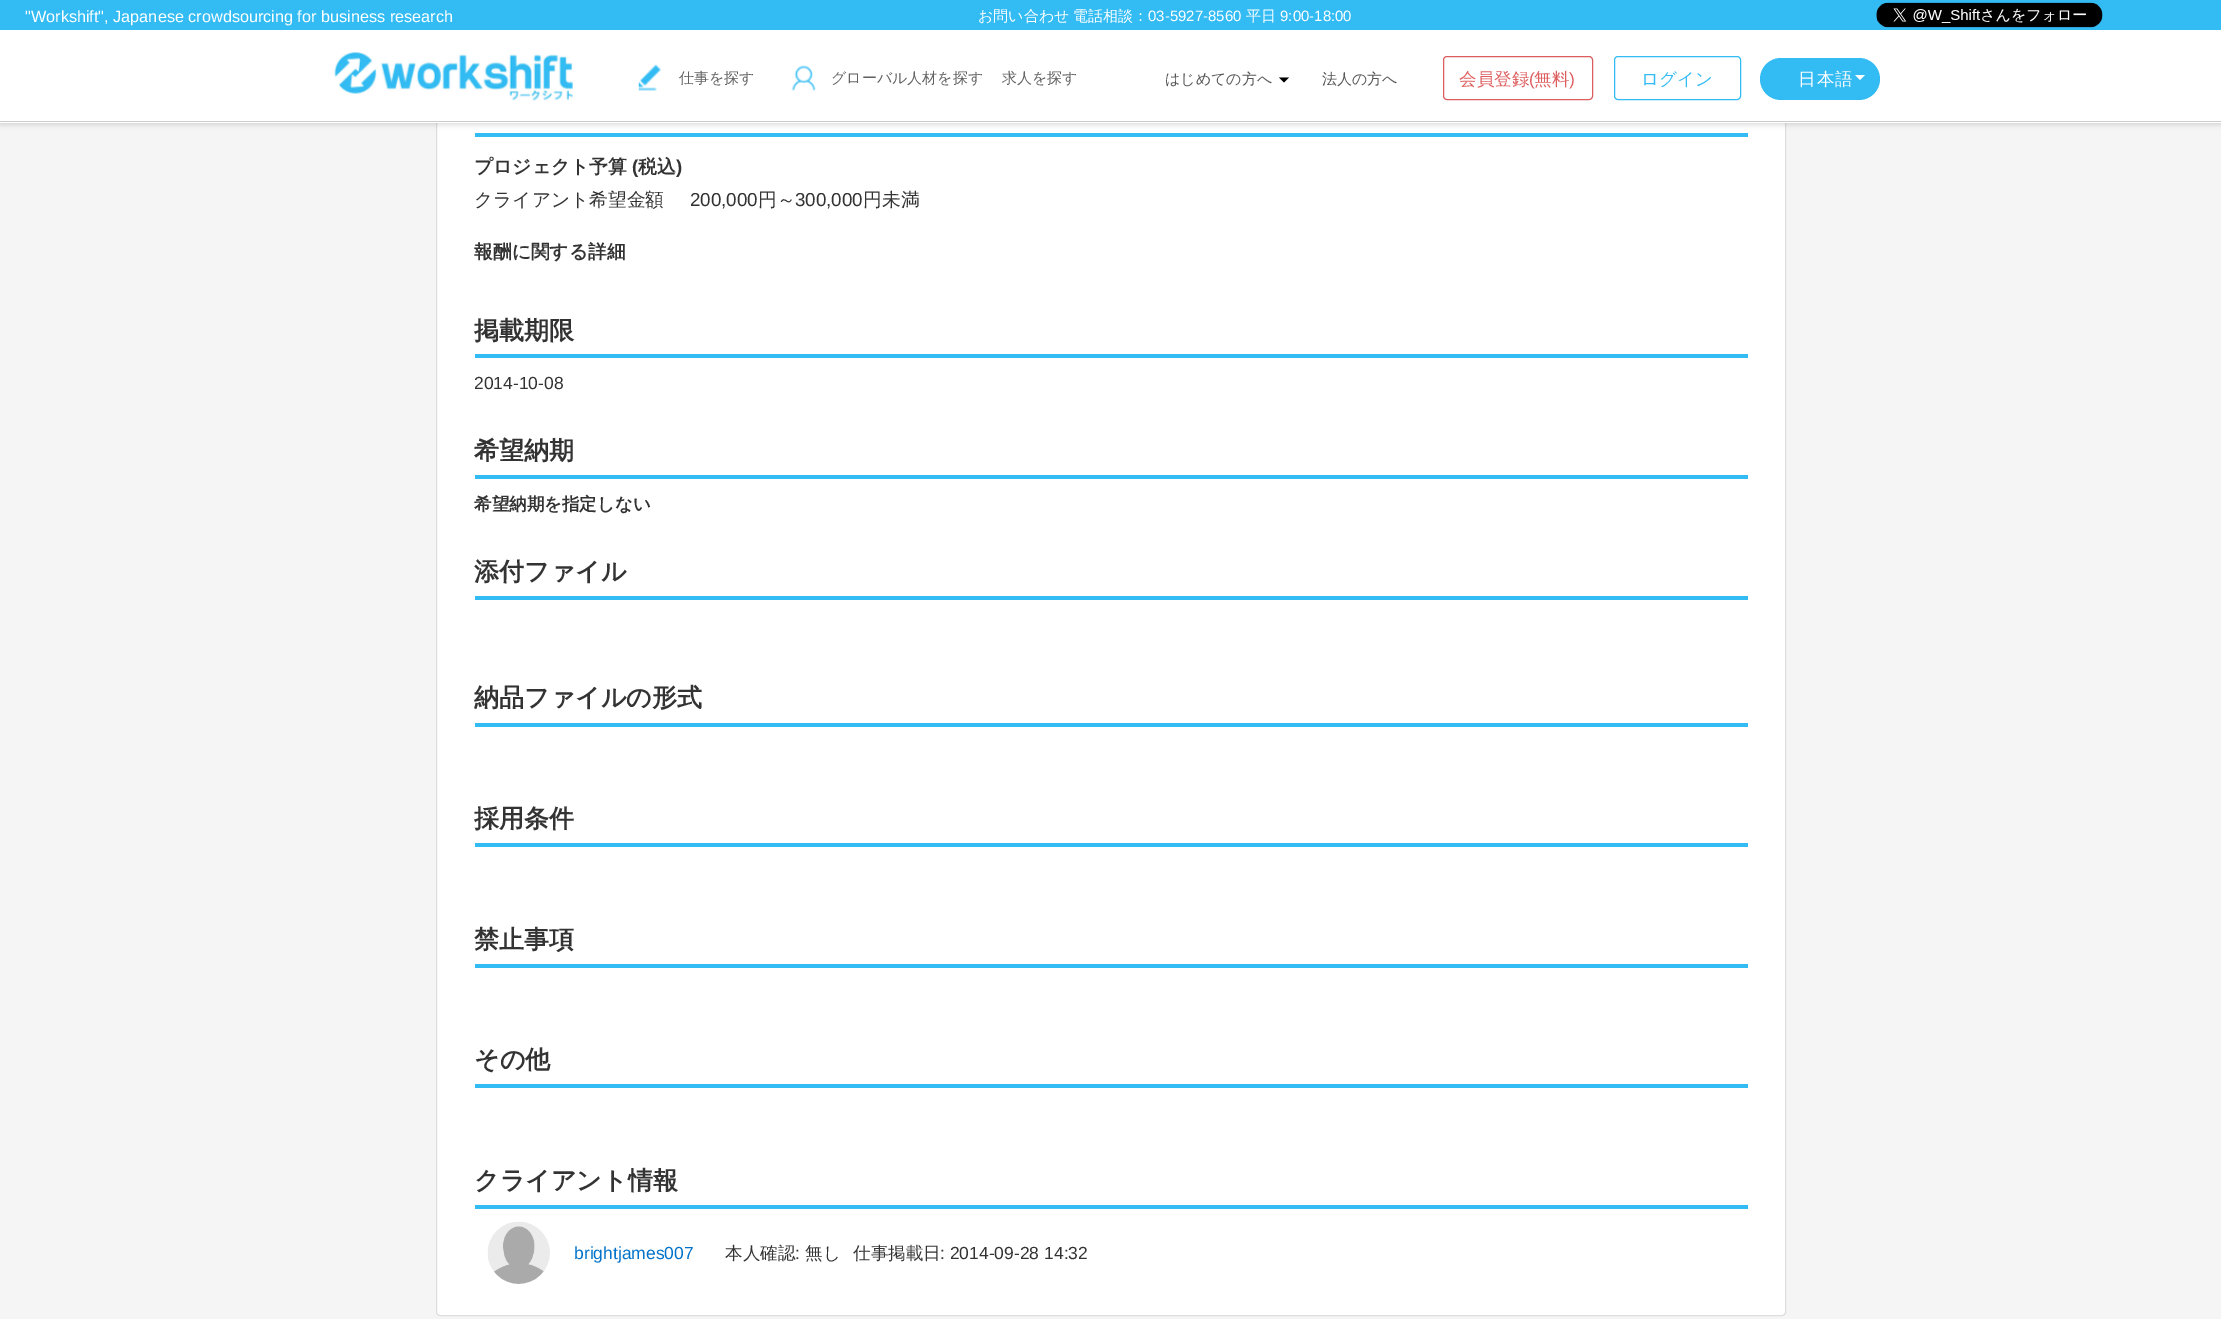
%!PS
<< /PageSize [2221 1319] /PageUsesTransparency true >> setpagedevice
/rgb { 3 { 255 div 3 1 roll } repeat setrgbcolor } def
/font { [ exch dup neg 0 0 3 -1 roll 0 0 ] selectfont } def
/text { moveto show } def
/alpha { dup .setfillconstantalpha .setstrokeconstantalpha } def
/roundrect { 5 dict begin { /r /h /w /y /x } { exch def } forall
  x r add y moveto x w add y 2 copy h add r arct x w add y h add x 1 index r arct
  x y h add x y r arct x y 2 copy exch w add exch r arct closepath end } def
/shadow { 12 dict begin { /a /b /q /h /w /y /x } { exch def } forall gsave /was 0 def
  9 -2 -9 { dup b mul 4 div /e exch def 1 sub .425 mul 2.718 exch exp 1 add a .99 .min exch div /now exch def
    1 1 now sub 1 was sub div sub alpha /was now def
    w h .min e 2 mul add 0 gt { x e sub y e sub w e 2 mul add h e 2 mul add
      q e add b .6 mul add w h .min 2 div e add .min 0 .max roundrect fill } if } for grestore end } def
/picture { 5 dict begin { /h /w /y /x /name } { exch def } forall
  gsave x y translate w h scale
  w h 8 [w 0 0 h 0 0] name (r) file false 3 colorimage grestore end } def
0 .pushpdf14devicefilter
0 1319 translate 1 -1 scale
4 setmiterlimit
245 245 245 rgb
0 0 2221 1319 rectfill
255 255 255 rgb
436.5 -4.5 1349 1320 3.5 roundrect gsave fill grestore
221 221 221 rgb
stroke
50 188 243 rgb
475 133 1273 4 rectfill
0 0 0 rgb
0 3 2221 122 0 2.5 0.12 shadow
255 255 255 rgb
0 30 2221 93 rectfill
204 204 204 rgb
0 121 2221 1 rectfill
51 187 243 rgb
0 0 2221 30 rectfill
(img_01.rgb) 1876 2 227 26 picture
(img_02.rgb) 334 52 239 49 picture
(img_03.rgb) 638 64 23 27 picture
(img_04.rgb) 791 65 25 26 picture
0 0 0 rgb
1279 77.5 moveto 10 0 rlineto -5 5 rlineto closepath fill
219 94 94 rgb
1443.5 56.5 149 43 3.5 roundrect stroke
51 187 243 rgb
1614.5 56.5 126 43 3.5 roundrect stroke
1760 58 120 42 21 roundrect fill
255 255 255 rgb
1855 75 moveto 10 0 rlineto -5 5 rlineto closepath fill
50 188 243 rgb
475 354 1273 4 rectfill
475 475 1273 4 rectfill
475 596 1273 4 rectfill
475 723 1273 4 rectfill
475 843 1273 4 rectfill
475 964 1273 4 rectfill
475 1084 1273 4 rectfill
475 1205 1273 4 rectfill
(img_05.rgb) 487 1221 63 63 picture
/LiberationSans-Regular 16.25 font
255 255 255 rgb
("Workshift", Japanese crowdsourcing for business research) 25 22 text
/WenQuanYiZenHei-Medium 15 font
(お問い合わせ) 978 21 text
(電話相談：) 1073 21 text
/LiberationSans-Regular 15 font
(03-5927-8560) 1148 21 text
/WenQuanYiZenHei-Medium 15 font
(平日) 1246 21 text
/LiberationSans-Regular 15 font
(9:00-18:00) 1280 21 text
/WenQuanYiZenHei-Medium 15 font
97 97 97 rgb
(仕事を探す) 679 83 text
(グローバル人材を探す) 831 83 text
(求人を探す) 1002 83 text
85 85 85 rgb
(はじめての方へ) 1165 84 text
(法人の方へ) 1322 84 text
/WenQuanYiZenHei-Medium 17.5 font
222 94 94 rgb
(会員登録) 1459 85 text
/LiberationSans-Regular 17.5 font
(\() 1529 85 text
/WenQuanYiZenHei-Medium 17.5 font
(無料) 1534 85 text
/LiberationSans-Regular 17.5 font
(\)) 1569 85 text
/WenQuanYiZenHei-Medium 17.5 font
51 187 243 rgb
(ログイン) 1641 85 text
255 255 255 rgb
1798 85 moveto 1 0 (日本語) ashow
/WenQuanYiZenHei-Bold 18.75 font
51 51 51 rgb
(プロジェクト予算) 474 173 text
/LiberationSans-Bold 18.75 font
(\() 632 173 text
/WenQuanYiZenHei-Bold 18.75 font
(税込) 638 173 text
/LiberationSans-Bold 18.75 font
(\)) 676 173 text
/WenQuanYiZenHei-Medium 18.75 font
(クライアント希望金額) 474 206 text
/LiberationSans-Regular 18.75 font
(200,000) 690 206 text
/WenQuanYiZenHei-Medium 18.75 font
(円～) 758 206 text
/LiberationSans-Regular 18.75 font
(300,000) 795 206 text
/WenQuanYiZenHei-Medium 18.75 font
(円未満) 863 206 text
/WenQuanYiZenHei-Bold 18.75 font
(報酬に関する詳細) 474 258 text
/WenQuanYiZenHei-Bold 25 font
(掲載期限) 474 339 text
/LiberationSans-Regular 17.5 font
(2014-10-08) 474 389 text
/WenQuanYiZenHei-Bold 25 font
(希望納期) 474 459 text
/WenQuanYiZenHei-Bold 17.5 font
(希望納期を指定しない) 474 510 text
/WenQuanYiZenHei-Bold 25 font
(添付ファイル) 474 580 text
(納品ファイルの形式) 474 706 text
(採用条件) 474 827 text
(禁止事項) 474 948 text
(その他) 474 1068 text
(クライアント情報) 474 1189 text
/LiberationSans-Regular 17.5 font
0 114 201 rgb
(brightjames007) 574 1259 text
/WenQuanYiZenHei-Medium 17.5 font
51 51 51 rgb
(本人確認) 725 1259 text
/LiberationSans-Regular 17.5 font
(:) 795 1259 text
/WenQuanYiZenHei-Medium 17.5 font
(無し) 805 1259 text
(仕事掲載日) 853 1259 text
/LiberationSans-Regular 17.5 font
(: 2014-09-28 14:32) 940 1259 text
.poppdf14devicefilter showpage
